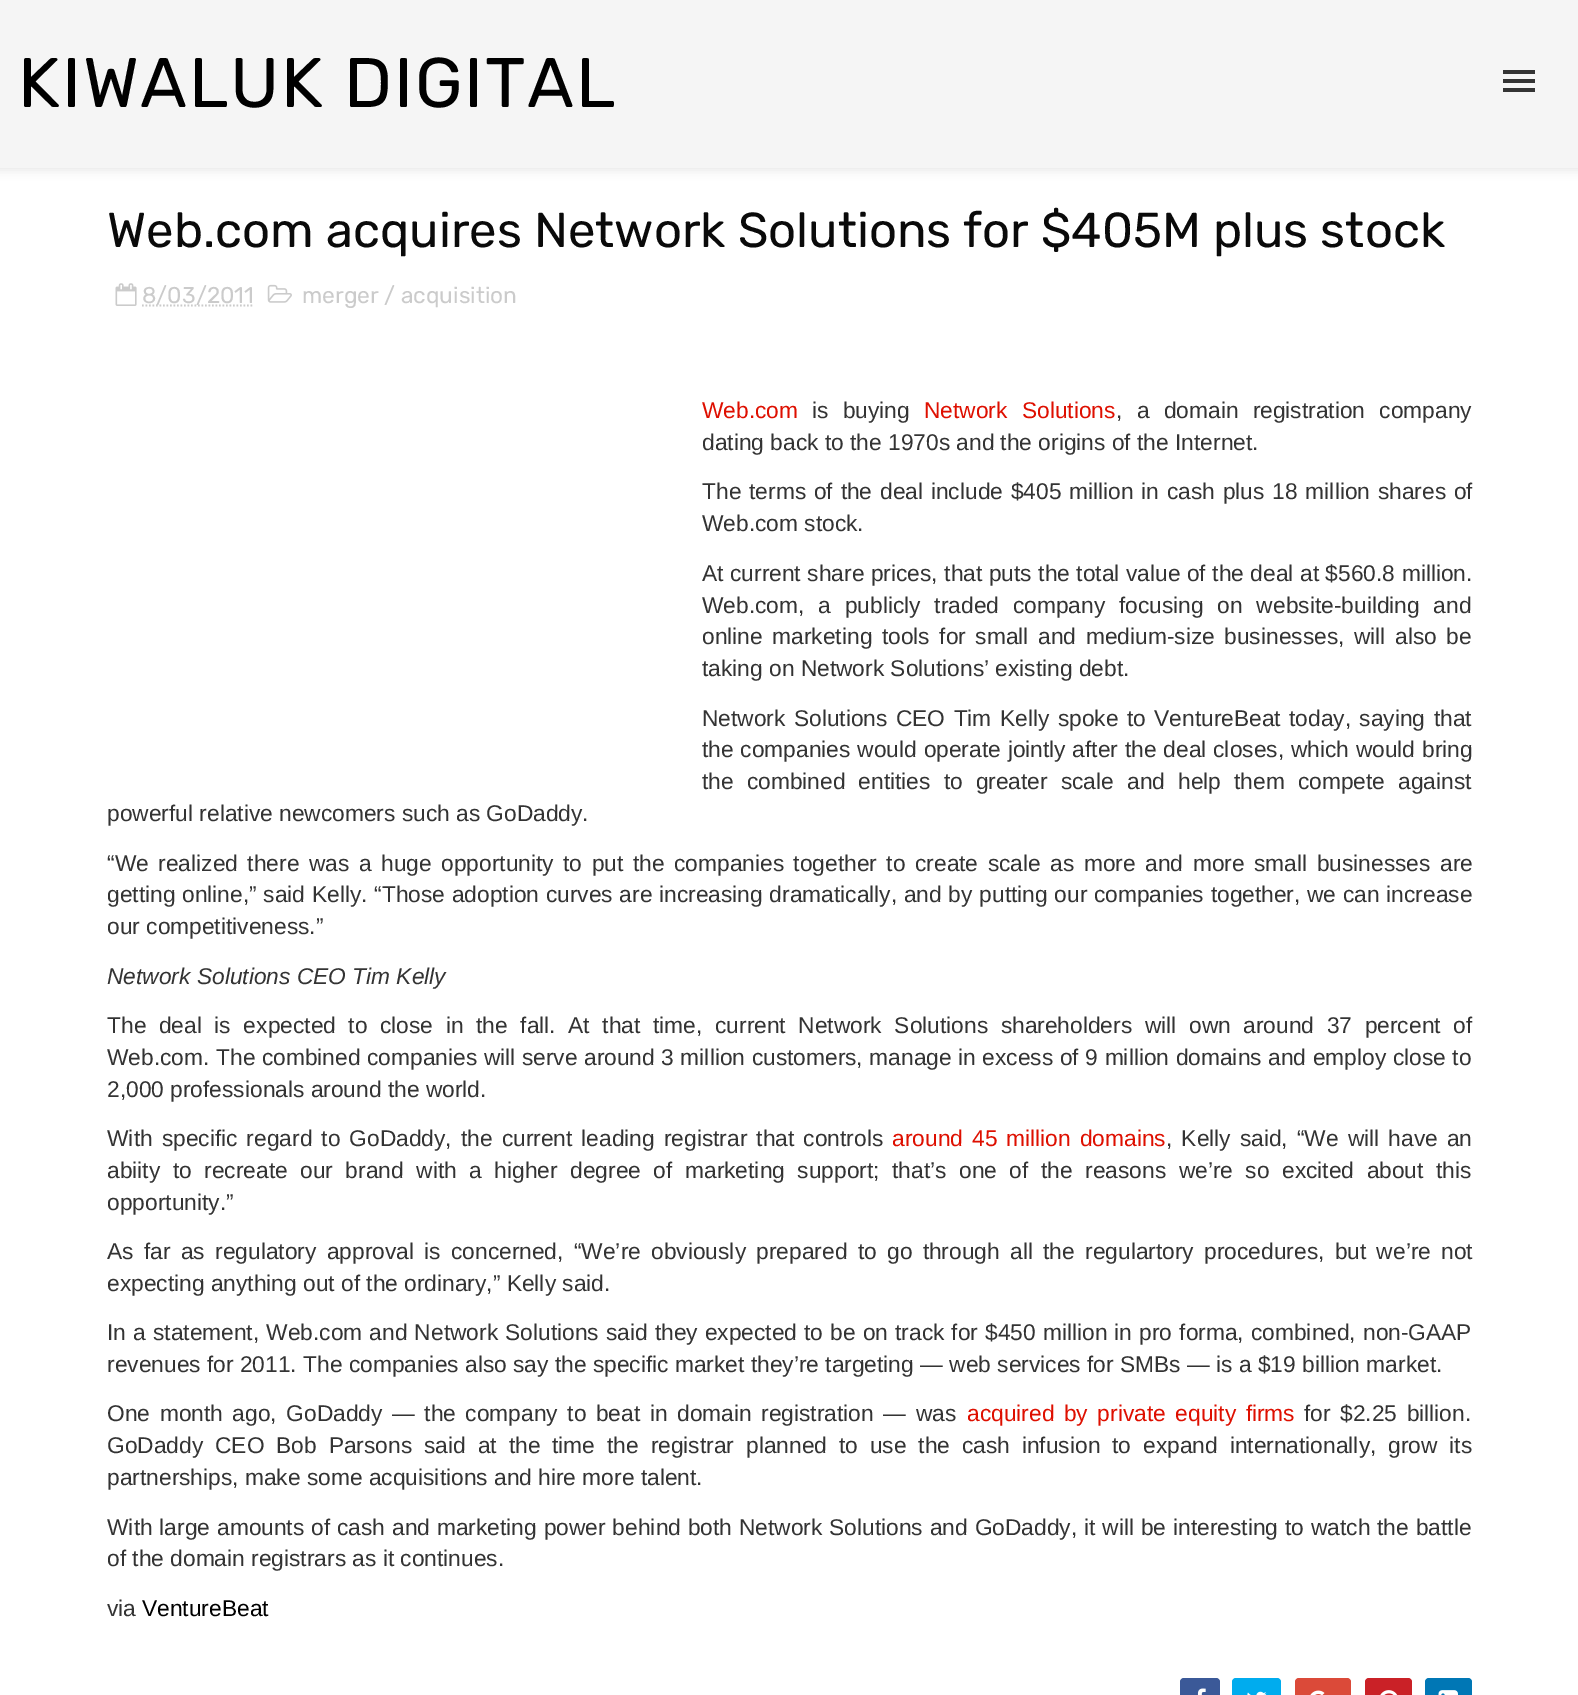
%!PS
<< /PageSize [1578 1695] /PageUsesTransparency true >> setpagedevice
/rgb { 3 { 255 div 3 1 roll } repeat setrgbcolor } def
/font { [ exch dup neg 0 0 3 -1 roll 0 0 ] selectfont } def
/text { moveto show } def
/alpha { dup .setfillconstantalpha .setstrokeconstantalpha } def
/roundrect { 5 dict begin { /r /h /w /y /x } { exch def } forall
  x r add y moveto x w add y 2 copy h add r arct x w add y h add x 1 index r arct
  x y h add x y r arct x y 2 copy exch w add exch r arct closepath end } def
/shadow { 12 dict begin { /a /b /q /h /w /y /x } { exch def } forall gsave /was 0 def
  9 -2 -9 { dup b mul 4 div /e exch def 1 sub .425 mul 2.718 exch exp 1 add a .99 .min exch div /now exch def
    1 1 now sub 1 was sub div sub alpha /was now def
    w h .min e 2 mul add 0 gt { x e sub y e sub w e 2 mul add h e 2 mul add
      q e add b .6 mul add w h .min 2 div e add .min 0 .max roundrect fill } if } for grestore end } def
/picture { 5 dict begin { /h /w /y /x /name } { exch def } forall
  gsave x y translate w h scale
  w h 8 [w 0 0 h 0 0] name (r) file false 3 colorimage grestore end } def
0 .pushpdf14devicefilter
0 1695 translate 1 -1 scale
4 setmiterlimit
255 255 255 rgb
0 0 1578 1695 rectfill
0 0 0 rgb
-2 -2 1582 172 0 5 0.1 shadow
245 245 245 rgb
0 0 1578 168 rectfill
52 52 52 rgb
1503 70 32 4 rectfill
1503 79 32 4 rectfill
1503 88 32 4 rectfill
(img_01.rgb) 115 283 22 23 picture
203 203 203 rgb
1.8 setlinewidth
[1.75 1.75] 0 setdash
142 305.5 moveto 112 0 rlineto stroke
(img_02.rgb) 267 284 25 19 picture
59 89 152 rgb
1180 1678 40 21 4 roundrect fill
(img_03.rgb) 1197 1688 9 7 picture
0 172 238 rgb
1232 1678 49 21 4 roundrect fill
(img_04.rgb) 1247 1691 20 4 picture
219 74 57 rgb
1295 1678 56 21 4 roundrect fill
(img_05.rgb) 1310 1690 15 5 picture
202 33 39 rgb
1365 1678 47 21 4 roundrect fill
(img_06.rgb) 1380 1690 18 5 picture
0 119 181 rgb
1425 1678 47 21 4 roundrect fill
(img_07.rgb) 1438 1690 20 5 picture
/Rubik-Regular 70 font
0 0 0 rgb
18 107 moveto 1.75 0 (KIWALUK DIGITAL) ashow
/Rubik-Regular 49 font
10 10 10 rgb
(Web.com acquires Network Solutions for $405M plus stock) 107 247 text
/Rubik-Regular 22.75 font
203 203 203 rgb
(8/03/2011) 142 303 text
(merger / acquisition) 302 303 text
/LiberationSans-Regular 22.75 font
222 15 0 rgb
(Web.com) 702 418 text
51 51 51 rgb
812 418 moveto 8 0 32 (is buying) widthshow
222 15 0 rgb
924 418 moveto 8 0 32 (Network Solutions) widthshow
51 51 51 rgb
1116 418 moveto 8 0 32 (, a domain registration company) widthshow
(dating back to the 1970s and the origins of the Internet.) 702 450 text
702 499 moveto 1.5 0 32 (The terms of the deal include $405 million in cash plus 18 million shares of) widthshow
(Web.com stock.) 702 531 text
702 581 moveto 0.2 0 32 (At current share prices, that puts the total value of the deal at $560.8 million.) widthshow
702 613 moveto 7.5 0 32 (Web.com, a publicly traded company focusing on website-building and) widthshow
702 644 moveto 3.25 0 32 (online marketing tools for small and medium-size businesses, will also be) widthshow
(taking on Network Solutions’ existing debt.) 702 676 text
702 726 moveto 2.1 0 32 (Network Solutions CEO Tim Kelly spoke to VentureBeat today, saying that) widthshow
702 757 moveto 0.5 0 32 (the companies would operate jointly after the deal closes, which would bring) widthshow
702 789 moveto 6.75 0 32 (the combined entities to greater scale and help them compete against) widthshow
(powerful relative newcomers such as GoDaddy.) 107 821 text
107 871 moveto 3.2 0 32 (“We realized there was a huge opportunity to put the companies together to create scale as more and more small businesses are) widthshow
107 902 moveto 0.4 0 32 (getting online,” said Kelly. “Those adoption curves are increasing dramatically, and by putting our companies together, we can increase) widthshow
(our competitiveness.”) 107 934 text
/LiberationSans-Italic 22.75 font
(Network Solutions CEO Tim Kelly) 107 984 text
/LiberationSans-Regular 22.75 font
107 1033 moveto 6.3 0 32 (The deal is expected to close in the fall. At that time, current Network Solutions shareholders will own around 37 percent of) widthshow
107 1065 moveto 0.25 0 32 (Web.com. The combined companies will serve around 3 million customers, manage in excess of 9 million domains and employ close to) widthshow
(2,000 professionals around the world.) 107 1097 text
107 1146 moveto 2.75 0 32 (With specific regard to GoDaddy, the current leading registrar that controls) widthshow
222 15 0 rgb
892 1146 moveto 2.75 0 32 (around 45 million domains) widthshow
51 51 51 rgb
1166 1146 moveto 2.75 0 32 (, Kelly said, “We will have an) widthshow
107 1178 moveto 6.2 0 32 (abiity to recreate our brand with a higher degree of marketing support; that’s one of the reasons we’re so excited about this) widthshow
(opportunity.”) 107 1210 text
107 1259 moveto 4 0 32 (As far as regulatory approval is concerned, “We’re obviously prepared to go through all the regulartory procedures, but we’re not) widthshow
(expecting anything out of the ordinary,” Kelly said.) 107 1291 text
107 1340 moveto 0.8 0 32 (In a statement, Web.com and Network Solutions said they expected to be on track for $450 million in pro forma, combined, non-GAAP) widthshow
(revenues for 2011. The companies also say the specific market they’re targeting — web services for SMBs — is a $19 billion market.) 107 1372 text
107 1421 moveto 3.25 0 32 (One month ago, GoDaddy — the company to beat in domain registration — was) widthshow
222 15 0 rgb
967 1421 moveto 3.25 0 32 (acquired by private equity firms) widthshow
51 51 51 rgb
1304 1421 moveto 3.25 0 32 (for $2.25 billion.) widthshow
107 1453 moveto 5.6 0 32 (GoDaddy CEO Bob Parsons said at the time the registrar planned to use the cash infusion to expand internationally, grow its) widthshow
(partnerships, make some acquisitions and hire more talent.) 107 1485 text
107 1535 moveto 0.6 0 32 (With large amounts of cash and marketing power behind both Network Solutions and GoDaddy, it will be interesting to watch the battle) widthshow
(of the domain registrars as it continues.) 107 1566 text
(via) 107 1616 text
0 0 0 rgb
(VentureBeat) 142 1616 text
.poppdf14devicefilter showpage
